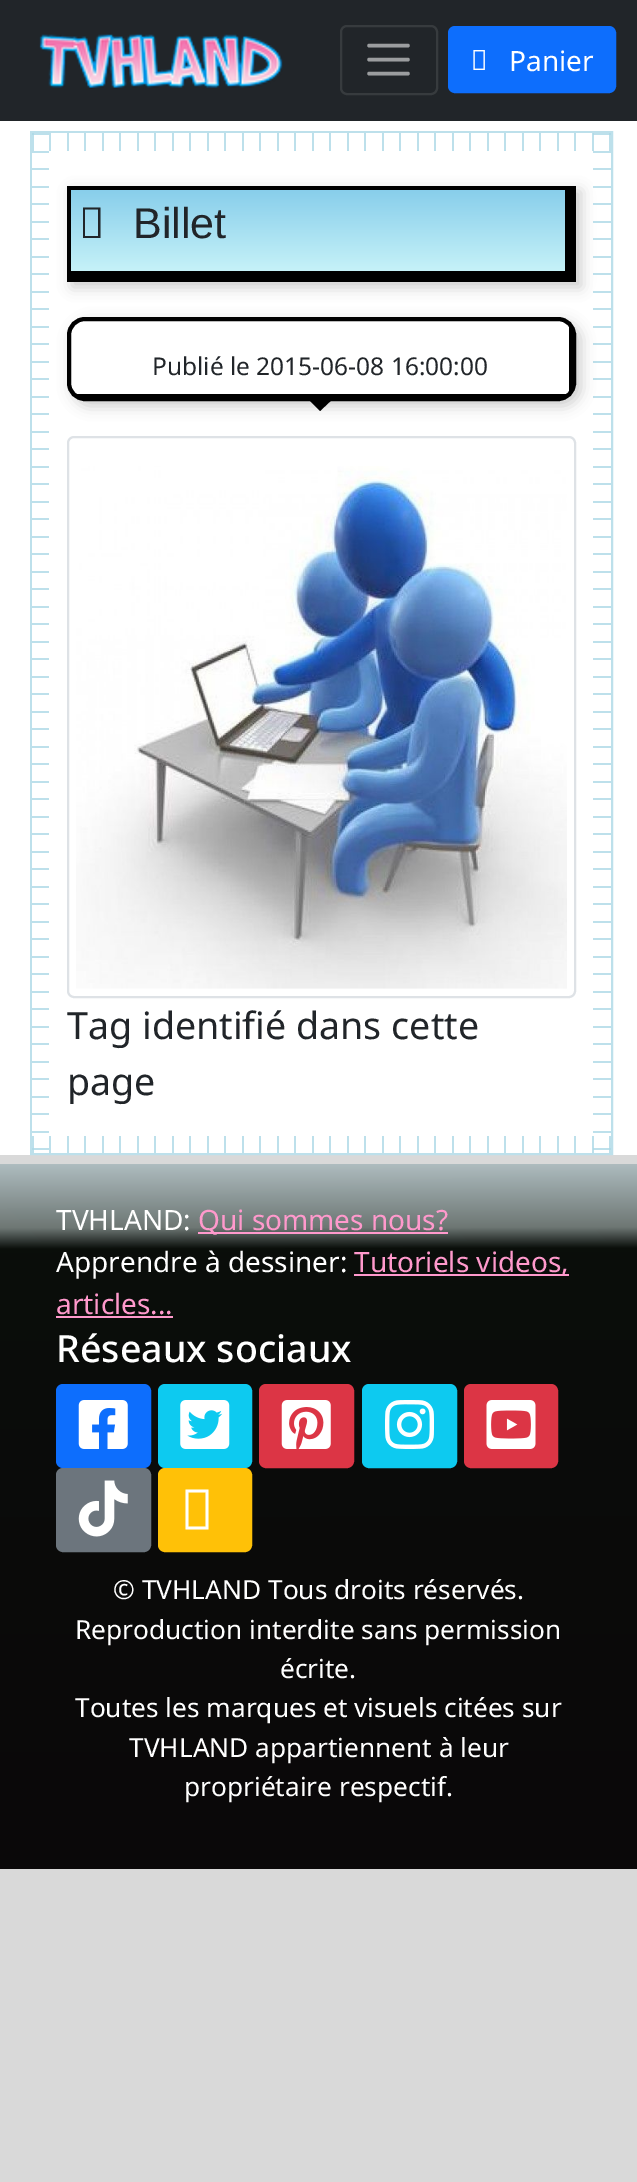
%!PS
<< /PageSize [637 2182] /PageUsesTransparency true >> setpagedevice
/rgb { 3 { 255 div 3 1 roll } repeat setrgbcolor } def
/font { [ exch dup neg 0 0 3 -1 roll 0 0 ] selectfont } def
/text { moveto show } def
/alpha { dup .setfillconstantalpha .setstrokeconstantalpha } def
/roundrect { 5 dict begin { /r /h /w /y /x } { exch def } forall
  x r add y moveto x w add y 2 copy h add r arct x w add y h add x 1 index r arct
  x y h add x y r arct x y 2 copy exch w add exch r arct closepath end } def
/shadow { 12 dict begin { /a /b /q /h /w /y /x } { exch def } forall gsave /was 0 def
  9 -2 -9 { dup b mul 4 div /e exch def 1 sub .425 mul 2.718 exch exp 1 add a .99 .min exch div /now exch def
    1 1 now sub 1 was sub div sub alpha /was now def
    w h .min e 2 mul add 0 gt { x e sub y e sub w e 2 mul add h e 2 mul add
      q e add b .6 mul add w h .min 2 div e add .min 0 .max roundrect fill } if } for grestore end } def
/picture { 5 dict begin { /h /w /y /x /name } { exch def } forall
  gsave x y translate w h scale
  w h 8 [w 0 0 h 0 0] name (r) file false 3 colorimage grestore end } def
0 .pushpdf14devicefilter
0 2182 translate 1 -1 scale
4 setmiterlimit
217 217 217 rgb
0 0 637 2182 rectfill
33 37 41 rgb
0 0 637 121 rectfill
(img_01.rgb) 39 33 244 56 picture
55 59 62 rgb
2 setlinewidth
341 26 96 68 6 roundrect stroke
155 157 159 rgb
3.5 setlinewidth
1 setlinecap
369 45.5 moveto 39 0 rlineto 369 59.5 moveto 39 0 rlineto 369 73.5 moveto 39 0 rlineto stroke
13 110 253 rgb
449 27 166 65 6 roundrect gsave fill grestore
2 setlinewidth
0 setlinecap
stroke
(img_02.rgb) 473 50 12 20 picture
255 255 255 rgb
0 121 637 1034 rectfill
189 224 235 rgb
31 132 581 1022 rectstroke
(img_03.rgb) 32 133 579 18 picture
(img_04.rgb) 32 133 17 1017 picture
0 0 0 rgb
72 191 509 96 0 7 0.2 shadow
gsave 71 190 moveto 494 0 rlineto 0 81 rlineto -494 0 rlineto closepath clip newpath
<< /ShadingType 2 /ColorSpace /DeviceRGB /Coords [318 189 318 271] /Extend [true true] /Function << /FunctionType 2 /Domain [0 1] /C0 [0.529 0.808 0.922] /C1 [0.776 0.949 0.973] /N 1 >> >> shfill grestore
67 186 498 4 rectfill
565 186 11 85 rectfill
71 271 505 11 rectfill
67 186 4 96 rectfill
33 37 41 rgb
83 238 moveto 0 -30.5 rlineto 17.5 0 rlineto 0 30.5 rlineto closepath 85 236 moveto 13 0 rlineto 0 -26.5 rlineto -13 0 rlineto closepath fill
(img_06.rgb) 593 133 18 1017 picture
gsave
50 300 moveto 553 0 rlineto 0 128 rlineto -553 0 rlineto closepath 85 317 moveto 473 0 rlineto 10 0 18 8 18 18 rcurveto 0 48 rlineto 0 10 -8 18 -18 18 rcurveto -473 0 rlineto -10 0 -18 -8 -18 -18 rcurveto 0 -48 rlineto 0 -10 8 -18 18 -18 rcurveto closepath eoclip newpath
0 0 0 rgb
72 322 509 84 18 7 0.2 shadow
grestore
0 0 0 rgb
4 setlinewidth
69 319 505 80 16 roundrect stroke
569 326 3 66 rectfill
75 394 492 3 rectfill
303 394 moveto 35 0 rlineto -18 17 rlineto closepath fill
222 226 230 rgb
2 setlinewidth
68 437 507 560 6 roundrect stroke
(img_05.rgb) 76 466 491 523 picture
(img_07.rgb) 32 1136 579 17 picture
gsave 0 1164 moveto 637 0 rlineto 0 705 rlineto -637 0 rlineto closepath clip newpath
<< /ShadingType 2 /ColorSpace /DeviceRGB /Coords [318 1164 319 1869] /Extend [true true] /Function << /FunctionType 3 /Domain [0 1] /Functions [<< /FunctionType 2 /Domain [0 1] /C0 [0.682 0.737 0.749] /C1 [0.431 0.467 0.455] /N 1 >> << /FunctionType 2 /Domain [0 1] /C0 [0.431 0.467 0.455] /C1 [0.039 0.055 0.039] /N 1 >> << /FunctionType 2 /Domain [0 1] /C0 [0.039 0.055 0.039] /C1 [0.039 0.031 0.035] /N 1 >>] /Bounds [0.09 0.12] /Encode [0 1 0 1 0 1] >> >> shfill grestore
255 153 204 rgb
198 1232 250 2 rectfill
354 1274 215 2 rectfill
56 1316 117 2 rectfill
13 110 253 rgb
57 1385 93 82 6 roundrect gsave fill grestore
stroke
(img_08.rgb) 78 1400 50 49 picture
13 202 240 rgb
159 1385 92 82 6 roundrect gsave fill grestore
stroke
(img_09.rgb) 180 1400 50 49 picture
220 53 69 rgb
260 1385 93 82 6 roundrect gsave fill grestore
stroke
(img_10.rgb) 281 1400 50 49 picture
13 202 240 rgb
363 1385 93 82 6 roundrect gsave fill grestore
stroke
(img_11.rgb) 385 1400 49 49 picture
220 53 69 rgb
465 1385 92 82 6 roundrect gsave fill grestore
stroke
(img_12.rgb) 486 1400 50 49 picture
108 117 125 rgb
57 1469 93 82 6 roundrect gsave fill grestore
stroke
(img_13.rgb) 78 1480 50 57 picture
255 193 7 rgb
159 1469 92 82 6 roundrect gsave fill grestore
stroke
255 255 255 rgb
185.5 1529.5 moveto 0 -40 rlineto 23 0 rlineto 0 40 rlineto closepath 188.5 1526.5 moveto 17 0 rlineto 0 -34 rlineto -17 0 rlineto closepath fill
/NotoSans-Regular 28 font
(Panier) 509 71 text
/LiberationSans-Regular 43 font
33 37 41 rgb
(Billet) 133 238 text
/NotoSans-Regular 24.5 font
(Publié le 2015-06-08 16:00:00) 152 375 text
/NotoSans-Regular 37.6 font
(Tag identifié dans cette) 67 1039 text
(page) 67 1095 text
/NotoSans-Regular 28 font
255 255 255 rgb
(TVHLAND:) 56 1230 text
255 153 204 rgb
(Qui sommes nous?) 198 1230 text
255 255 255 rgb
(Apprendre à dessiner:) 56 1272 text
255 153 204 rgb
(Tutoriels videos,) 354 1272 text
(articles...) 56 1314 text
/NotoSans-Medium 37.6 font
255 255 255 rgb
(Réseaux sociaux) 56 1362 text
/NotoSans-Regular 26.25 font
(© TVHLAND Tous droits réservés.) 113 1599 text
(Reproduction interdite sans permission) 75 1639 text
(écrite.) 280 1678 text
(Toutes les marques et visuels citées sur) 75 1717 text
(TVHLAND appartiennent à leur) 129 1757 text
(propriétaire respectif.) 184 1796 text
.poppdf14devicefilter showpage
